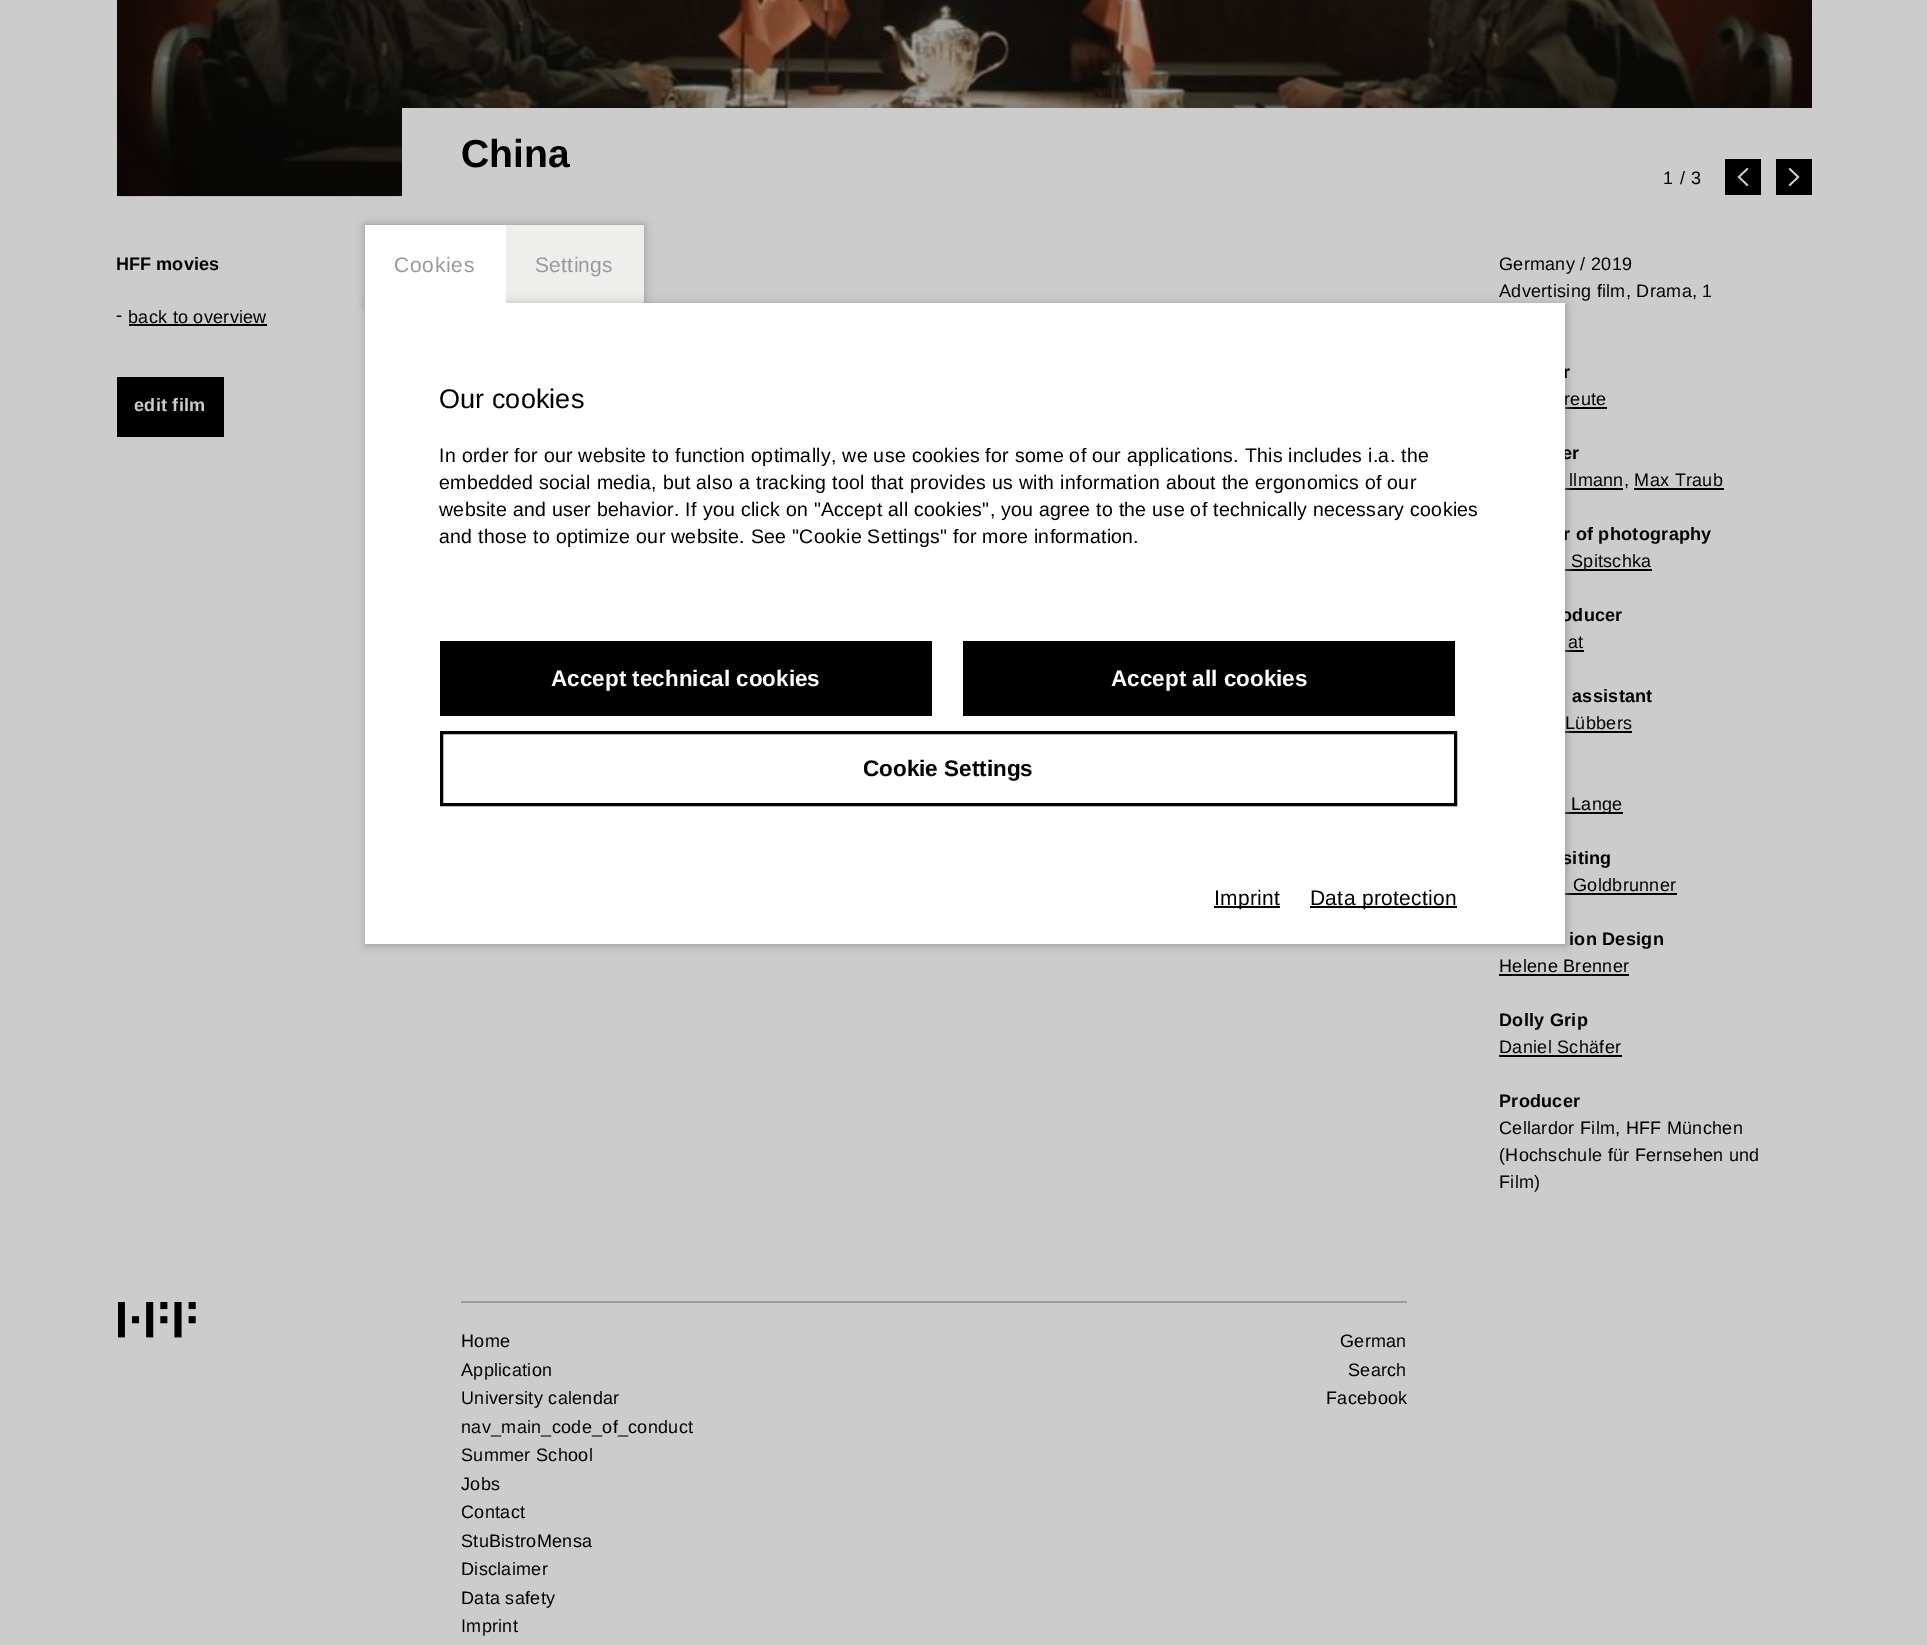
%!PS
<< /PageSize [1927 1645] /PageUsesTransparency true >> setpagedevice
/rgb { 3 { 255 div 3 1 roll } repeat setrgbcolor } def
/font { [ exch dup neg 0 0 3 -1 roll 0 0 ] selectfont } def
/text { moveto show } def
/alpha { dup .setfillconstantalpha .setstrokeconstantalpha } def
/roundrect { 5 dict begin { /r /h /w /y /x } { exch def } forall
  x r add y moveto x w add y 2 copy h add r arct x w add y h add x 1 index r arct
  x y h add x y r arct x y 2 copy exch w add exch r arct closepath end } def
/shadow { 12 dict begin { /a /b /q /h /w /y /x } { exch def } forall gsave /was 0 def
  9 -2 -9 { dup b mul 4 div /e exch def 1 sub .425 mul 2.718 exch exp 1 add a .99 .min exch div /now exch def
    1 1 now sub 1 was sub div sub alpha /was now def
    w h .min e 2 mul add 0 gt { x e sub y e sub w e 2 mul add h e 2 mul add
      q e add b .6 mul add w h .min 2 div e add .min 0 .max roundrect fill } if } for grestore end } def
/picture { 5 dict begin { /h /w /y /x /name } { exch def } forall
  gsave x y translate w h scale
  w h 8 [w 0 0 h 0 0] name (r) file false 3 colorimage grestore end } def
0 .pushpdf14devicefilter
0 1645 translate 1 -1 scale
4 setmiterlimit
204 204 204 rgb
0 0 1927 1645 rectfill
0 0 0 rgb
129 324 138 2 rectfill
117 377 107 60 rectfill
1565 407 42 2 rectfill
1565 488 58 2 rectfill
1634 488 90 2 rectfill
1565 569 87 2 rectfill
1565 650 19 2 rectfill
1565 731 67 2 rectfill
1565 812 58 2 rectfill
1565 893 112 2 rectfill
1499 974 130 2 rectfill
1499 1055 123 2 rectfill
190 190 190 rgb
117 196 285 1 rectfill
(img_01.rgb) 117 0 1695 196 picture
204 204 204 rgb
402 108 1410 88 rectfill
0 0 0 rgb
1725 159 36 36 rectfill
204 204 204 rgb
1740 177 moveto 8.5 8 rlineto -1.5 1 rlineto -9.5 -9 rlineto 9.5 -9 rlineto 1.5 1 rlineto closepath fill
0 0 0 rgb
1776 159 36 36 rectfill
204 204 204 rgb
1797 177 moveto -8.5 -8 rlineto 1.5 -1 rlineto 9.5 9 rlineto -9.5 9 rlineto -1.5 -1 rlineto closepath fill
144 140 140 rgb
365 225 279 78 0 4.5 0.87 shadow
238 238 237 rgb
506 225 138 78 rectfill
144 140 140 rgb
366 305 1200 640 0 5 0.87 shadow
255 255 255 rgb
365 225 141 78 rectfill
(img_02.rgb) 118 1302 78 36 picture
156 156 156 rgb
461 1301 946 2 rectfill
/LiberationSans-Bold 39 font
0 0 0 rgb
461 167 moveto 0.1 0 (China) ashow
/LiberationSans-Bold 18 font
116 270 moveto 0.1 0 (HFF movies) ashow
/LiberationSans-Regular 18 font
116 321 moveto 0.3 0 (-) ashow
128 323 moveto 0.3 0 (back to overview) ashow
/LiberationSans-Bold 18 font
204 204 204 rgb
134 411 moveto 0.3 0 (edit film) ashow
/LiberationSans-Regular 18 font
0 0 0 rgb
1499 270 moveto 0.3 0 (Germany / 2019) ashow
1499 297 moveto 0.3 0 (Advertising film, Drama, 1) ashow
/LiberationSans-Bold 18 font
1563 378 moveto 0.3 0 (r) ashow
/LiberationSans-Regular 18 font
1564 405 moveto 0.3 0 (reute) ashow
/LiberationSans-Bold 18 font
1562 459 moveto 0.3 0 (er) ashow
/LiberationSans-Regular 18 font
1569 486 moveto 0.3 0 (llmann, Max Traub) ashow
/LiberationSans-Bold 18 font
1563 540 moveto 0.3 0 (r of photography) ashow
/LiberationSans-Regular 18 font
1571 567 moveto 0.3 0 (Spitschka) ashow
/LiberationSans-Bold 18 font
1561 621 moveto 0.3 0 (oducer) ashow
/LiberationSans-Regular 18 font
1568 648 moveto 0.3 0 (at) ashow
/LiberationSans-Bold 18 font
1572 702 moveto 0.3 0 (assistant) ashow
/LiberationSans-Regular 18 font
1565 729 moveto 0.3 0 (Lübbers) ashow
1571 810 moveto 0.3 0 (Lange) ashow
/LiberationSans-Bold 18 font
1562 864 moveto 0.3 0 (siting) ashow
/LiberationSans-Regular 18 font
1573 891 moveto 0.3 0 (Goldbrunner) ashow
/LiberationSans-Bold 18 font
1569 945 moveto 0.3 0 (ion Design) ashow
/LiberationSans-Regular 18 font
1499 972 moveto 0.3 0 (Helene Brenner) ashow
/LiberationSans-Bold 18 font
1499 1026 moveto 0.3 0 (Dolly Grip) ashow
/LiberationSans-Regular 18 font
1499 1053 moveto 0.3 0 (Daniel Schäfer) ashow
/LiberationSans-Bold 18 font
1499 1107 moveto 0.3 0 (Producer) ashow
/LiberationSans-Regular 18 font
1499 1134 moveto 0.3 0 (Cellardor Film, HFF München) ashow
1499 1161 moveto 0.3 0 (\(Hochschule für Fernsehen und) ashow
1499 1188 moveto 0.3 0 (Film\)) ashow
1663 184 moveto 0.75 0 (1 / 3) ashow
/LiberationSans-Regular 21 font
153 153 153 rgb
394 272 moveto 0.75 0 (Cookies) ashow
535 272 moveto 0.3 0 (Settings) ashow
255 255 255 rgb
365 303 1200 641 rectfill
/LiberationSans-Regular 27 font
0 0 0 rgb
439 408 moveto 0.1 0 (Our cookies) ashow
/LiberationSans-Regular 19.5 font
439 462 moveto 0.3 0 (In order for our website to function optimally, we use cookies for some of our applications. This includes i.a. the) ashow
439 489 moveto 0.3 0 (embedded social media, but also a tracking tool that provides us with information about the ergonomics of our) ashow
439 516 moveto 0.3 0 (website and user behavior. If you click on "Accept all cookies", you agree to the use of technically necessary cookies) ashow
439 543 moveto 0.3 0 (and those to optimize our website. See "Cookie Settings" for more information.) ashow
440 641 492 75 rectfill
/LiberationSans-Bold 22.5 font
255 255 255 rgb
(Accept technical cookies) 551 686 text
0 0 0 rgb
963 641 492 75 rectfill
255 255 255 rgb
(Accept all cookies) 1111 686 text
0 0 0 rgb
3 setlinewidth
441.5 732.5 1014 72 rectstroke
(Cookie Settings) 863 776 text
1214 906 66 2 rectfill
/LiberationSans-Regular 21 font
1214 905 moveto 0.3 0 (Imprint) ashow
1310 906 147 2 rectfill
1310 905 moveto 0.3 0 (Data protection) ashow
/LiberationSans-Regular 18 font
461 1347 moveto 0.3 0 (Home) ashow
461 1376 moveto 0.3 0 (Application) ashow
461 1404 moveto 0.3 0 (University calendar) ashow
461 1433 moveto 0.3 0 (nav_main_code_of_conduct) ashow
461 1461 moveto 0.3 0 (Summer School) ashow
461 1490 moveto 0.3 0 (Jobs) ashow
461 1518 moveto 0.3 0 (Contact) ashow
461 1547 moveto 0.3 0 (StuBistroMensa) ashow
461 1575 moveto 0.3 0 (Disclaimer) ashow
461 1604 moveto 0.3 0 (Data safety) ashow
461 1632 moveto 0.3 0 (Imprint) ashow
1340 1347 moveto 0.3 0 (German) ashow
1348 1376 moveto 0.3 0 (Search) ashow
1326 1404 moveto 0.3 0 (Facebook) ashow
.poppdf14devicefilter showpage
